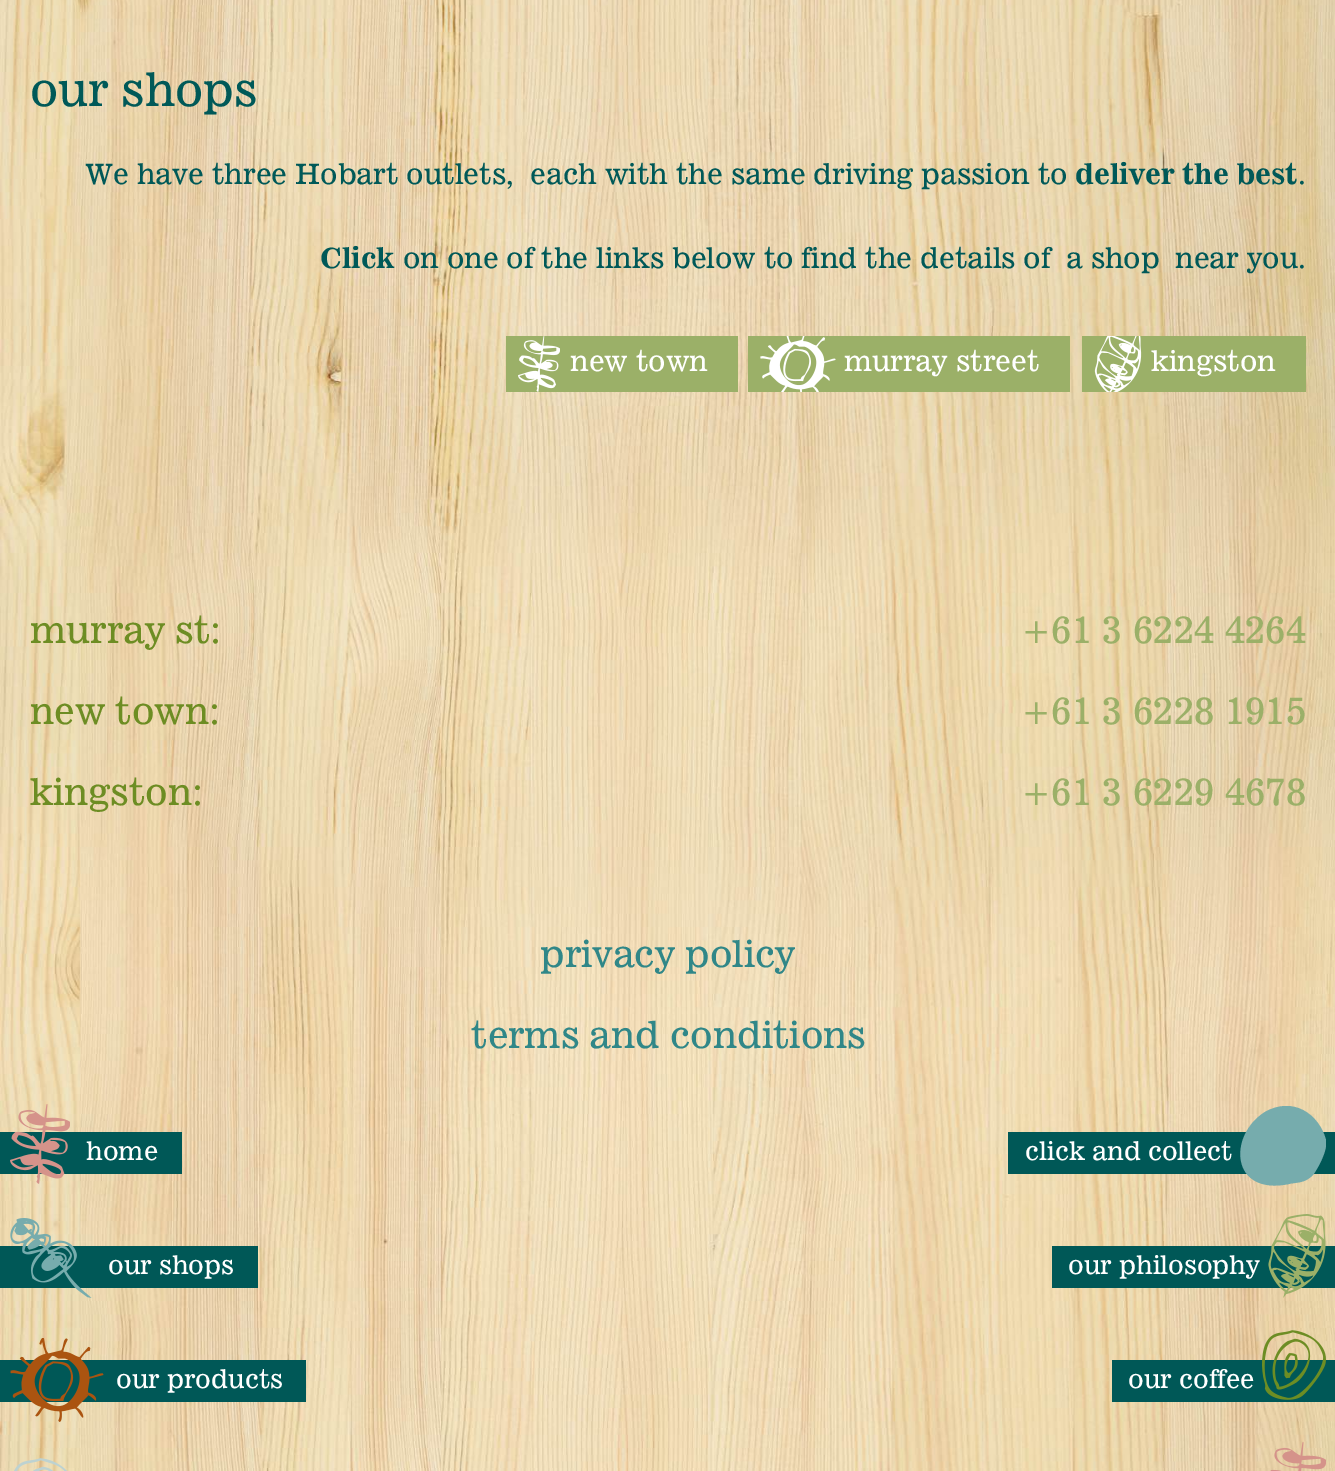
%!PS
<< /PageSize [1335 1471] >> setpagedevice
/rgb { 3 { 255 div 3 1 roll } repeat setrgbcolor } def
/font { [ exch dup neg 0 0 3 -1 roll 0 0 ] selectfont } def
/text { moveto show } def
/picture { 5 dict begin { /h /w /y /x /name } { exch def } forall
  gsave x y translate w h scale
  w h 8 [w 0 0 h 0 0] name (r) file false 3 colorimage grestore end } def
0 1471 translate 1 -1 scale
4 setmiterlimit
255 255 255 rgb
0 0 1335 1471 rectfill
(img_01.rgb) 0 0 1335 1471 picture
155 176 104 rgb
506 336 232 56 rectfill
(img_02.rgb) 518 336 42 56 picture
748 336 322 56 rectfill
(img_03.rgb) 760 336 76 56 picture
1082 336 224 56 rectfill
(img_04.rgb) 1094 336 48 56 picture
0 88 87 rgb
0 1132 182 42 rectfill
(img_05.rgb) 10 1104 60 80 picture
1008 1132 327 42 rectfill
gsave
1240 1106 86 80 rectclip
118 172 173 rgb
1289 1184 moveto 7 -2 15 0 24 -9 rcurveto 5 -7 15 -25 13 -35 rcurveto -7 -26 -33 -44 -61 -28 rcurveto -37 23 -35 84 24 72 rcurveto fill
grestore
0 1246 258 42 rectfill
(img_06.rgb) 10 1218 82 80 picture
1052 1246 283 42 rectfill
(img_07.rgb) 1268 1214 58 84 picture
0 1360 306 42 rectfill
(img_08.rgb) 10 1338 94 84 picture
1112 1360 223 42 rectfill
(img_09.rgb) 1262 1330 64 70 picture
(img_10.rgb) 14 1458 53 13 picture
(img_11.rgb) 1270 1442 56 29 picture
/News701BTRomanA-Regular 45.5 font
0 89 88 rgb
(our shops) 30 106 text
/News701BTRomanA-Regular 28 font
(We have three Hobart outlets,) 85 184 text
(each with the same driving passion to) 530 184 text
/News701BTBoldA-Bold 28 font
(deliver the best) 1075 184 text
/News701BTRomanA-Regular 28 font
(.) 1298 184 text
/News701BTBoldA-Bold 28 font
(Click) 320 268 text
/News701BTRomanA-Regular 28 font
(on one of the links below to find the details of) 403 268 text
(a shop) 1066 268 text
(near you.) 1175 268 text
255 255 255 rgb
(new town) 570 371 text
(murray street) 844 371 text
(kingston) 1151 371 text
/News701BTRomanA-Regular 36.4 font
109 141 35 rgb
(murray st:) 30 643 text
155 176 104 rgb
(+61 3 6224 4264) 1021 643 text
109 141 35 rgb
(new town:) 30 724 text
155 176 104 rgb
(+61 3 6228 1915) 1021 724 text
109 141 35 rgb
(kingston:) 30 805 text
155 176 104 rgb
(+61 3 6229 4678) 1021 805 text
48 135 136 rgb
(privacy policy) 540 967 text
(terms and conditions) 471 1048 text
/News701BTRomanA-Regular 25.25 font
255 255 255 rgb
(home) 86 1160 text
(click and collect) 1025 1160 text
(our shops) 108 1274 text
(our philosophy) 1068 1274 text
(our products) 116 1388 text
(our coffee) 1128 1388 text
showpage
